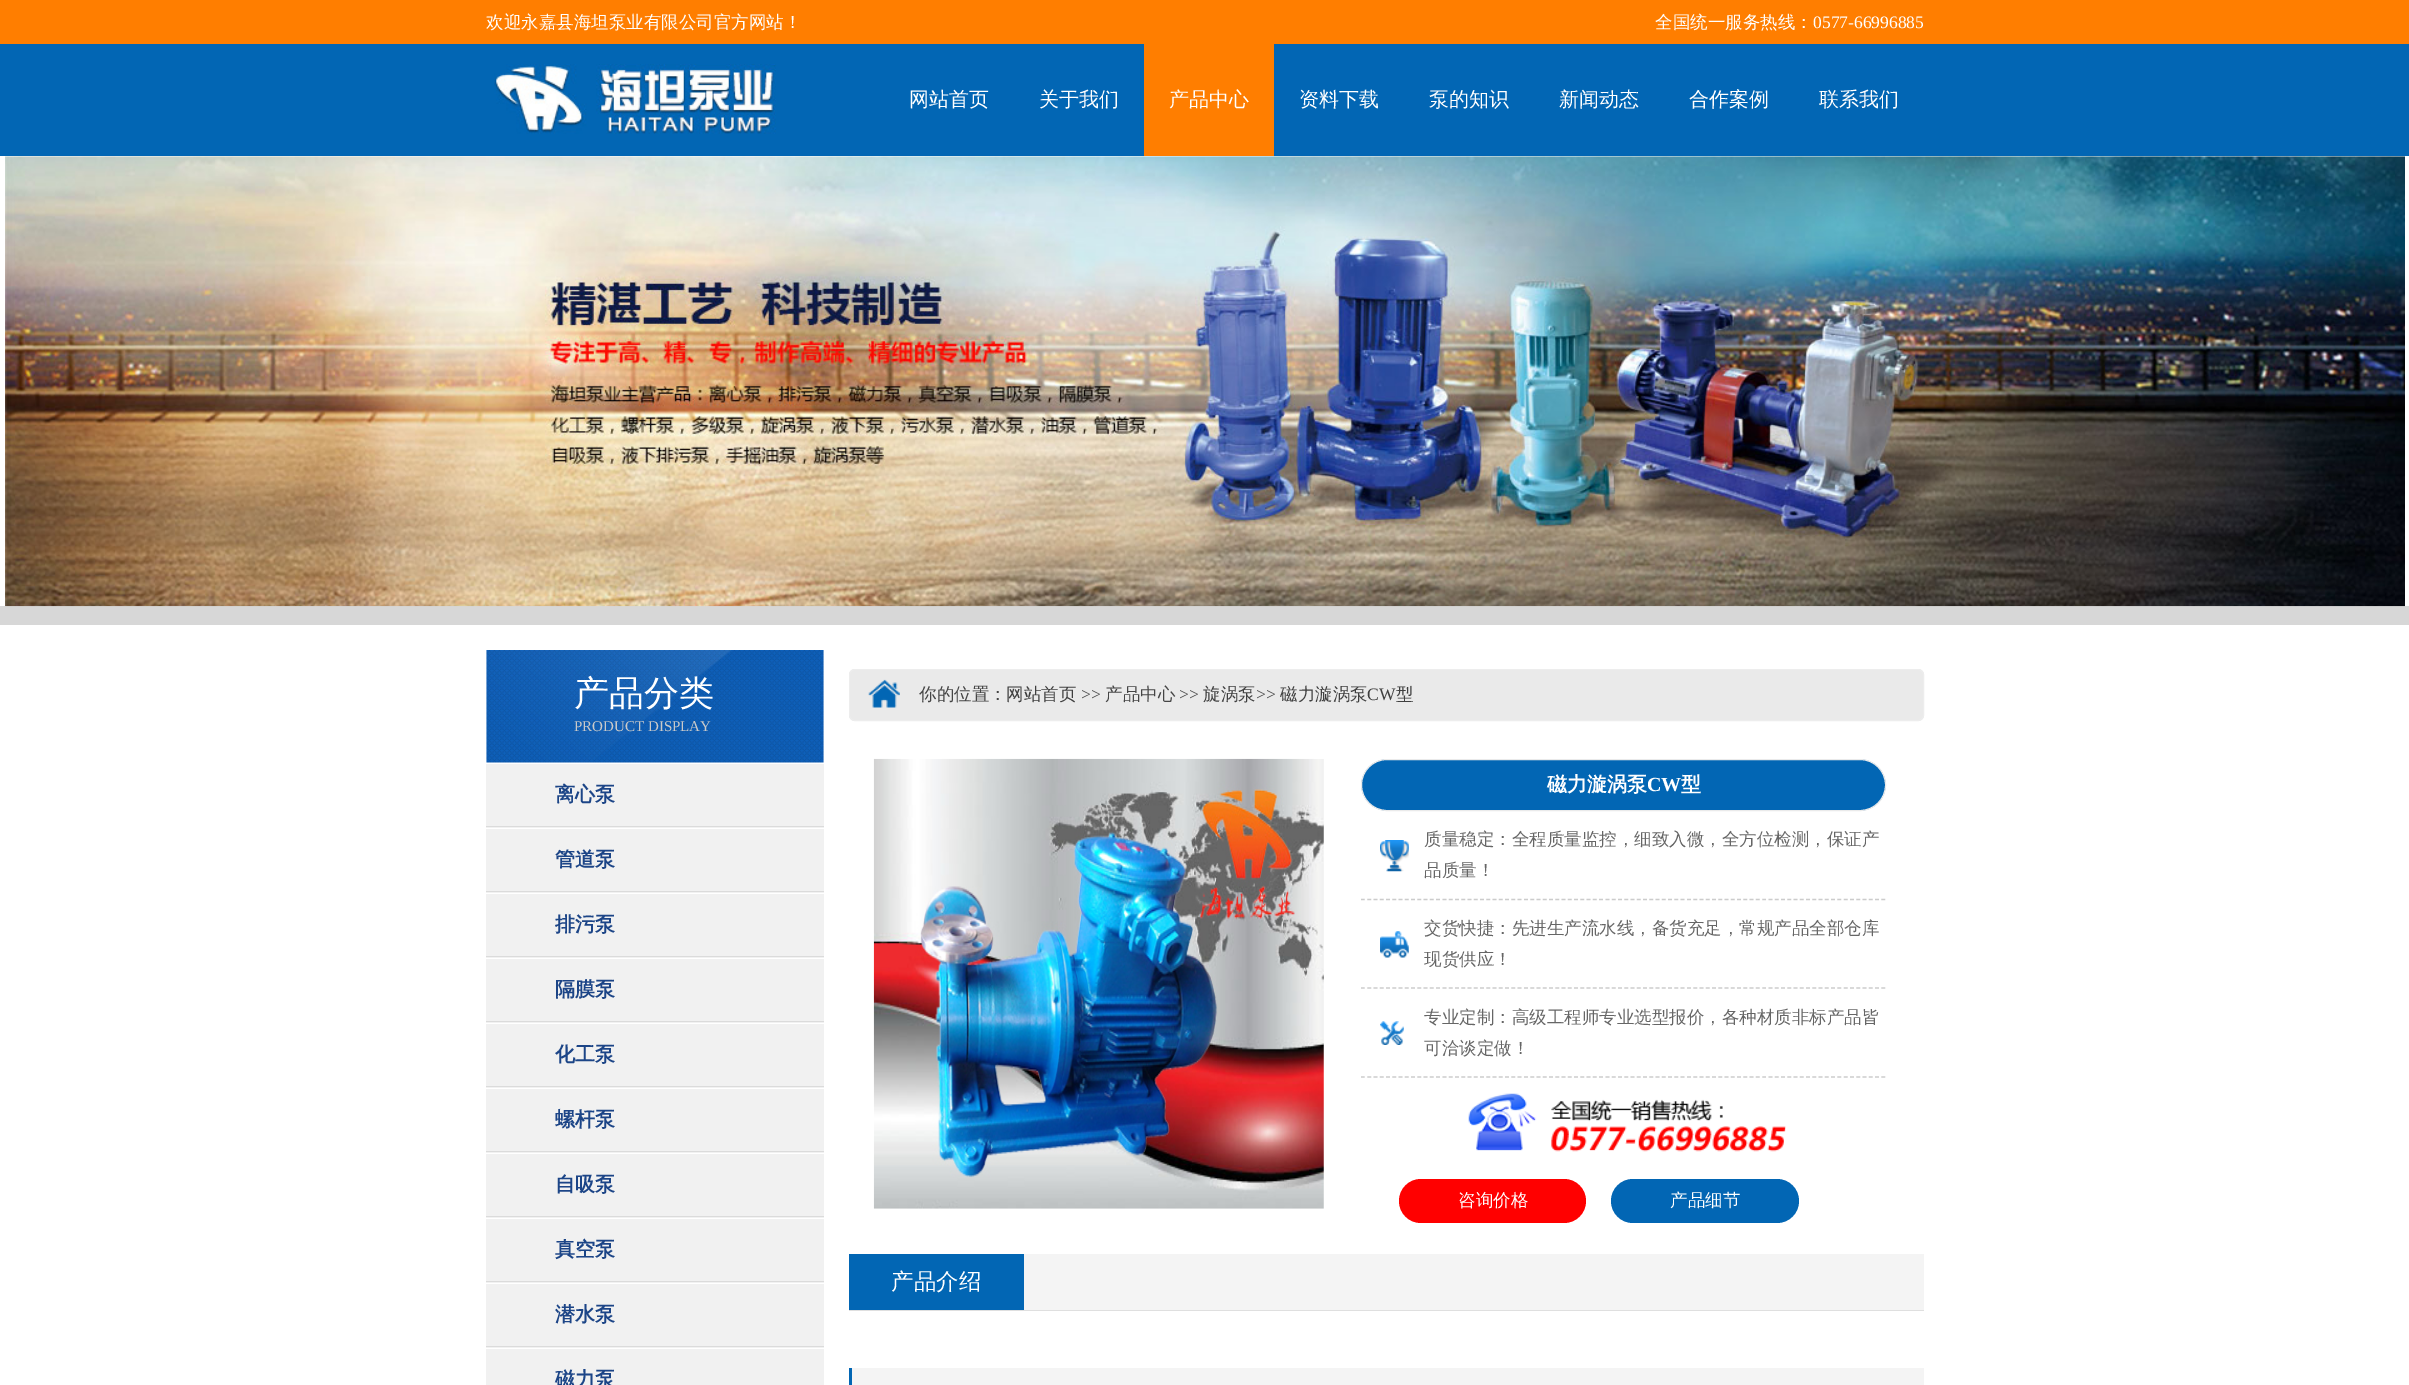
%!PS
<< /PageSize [2409 1385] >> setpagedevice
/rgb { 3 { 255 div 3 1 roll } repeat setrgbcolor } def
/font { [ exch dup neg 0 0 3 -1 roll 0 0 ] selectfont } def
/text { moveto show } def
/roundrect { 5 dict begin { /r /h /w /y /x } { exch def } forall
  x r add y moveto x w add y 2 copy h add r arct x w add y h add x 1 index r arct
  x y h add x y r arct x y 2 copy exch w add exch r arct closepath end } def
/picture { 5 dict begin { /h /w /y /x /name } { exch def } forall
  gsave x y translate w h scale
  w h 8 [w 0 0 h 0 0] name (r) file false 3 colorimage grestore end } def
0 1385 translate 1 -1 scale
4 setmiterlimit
255 255 255 rgb
0 0 2409 1385 rectfill
2 102 180 rgb
0 44 2409 112 rectfill
255 126 0 rgb
0 0 2409 44 rectfill
(img_01.rgb) 494 64 282 70 picture
1144 44 130 112 rectfill
215 215 215 rgb
0 606 2409 19 rectfill
(img_02.rgb) 5 156 2400 451 picture
(img_03.rgb) 486 650 338 113 picture
241 241 241 rgb
486 764 338 64 rectfill
219 219 219 rgb
486 826 338 1 rectfill
241 241 241 rgb
486 829 338 64 rectfill
219 219 219 rgb
486 891 338 1 rectfill
241 241 241 rgb
486 894 338 64 rectfill
219 219 219 rgb
486 956 338 1 rectfill
241 241 241 rgb
486 959 338 64 rectfill
219 219 219 rgb
486 1021 338 1 rectfill
241 241 241 rgb
486 1024 338 64 rectfill
219 219 219 rgb
486 1086 338 1 rectfill
241 241 241 rgb
486 1089 338 64 rectfill
219 219 219 rgb
486 1151 338 1 rectfill
241 241 241 rgb
486 1154 338 64 rectfill
219 219 219 rgb
486 1216 338 1 rectfill
241 241 241 rgb
486 1219 338 64 rectfill
219 219 219 rgb
486 1281 338 1 rectfill
241 241 241 rgb
486 1284 338 64 rectfill
219 219 219 rgb
486 1346 338 1 rectfill
241 241 241 rgb
486 1349 338 36 rectfill
234 234 234 rgb
849 669 1075 52 6 roundrect fill
(img_04.rgb) 868 679 32 29 picture
237 237 237 rgb
849.5 669.5 1074 51 5.5 roundrect stroke
(img_05.rgb) 873 758 451 451 picture
2 102 180 rgb
1361.5 759.5 524 51 25.5 roundrect gsave fill grestore
234 234 234 rgb
stroke
(img_06.rgb) 1380 840 29 32 picture
204 204 204 rgb
1.2 setlinewidth
[3.75 2.52] 0 setdash
1361 899.5 moveto 525 0 rlineto stroke
(img_07.rgb) 1380 931 29 27 picture
1361 988 moveto 525 0 rlineto stroke
(img_08.rgb) 1380 1021 24 24 picture
1361 1077 moveto 525 0 rlineto stroke
(img_09.rgb) 1468 1093 318 59 picture
255 0 0 rgb
1399 1179 187 44 22 roundrect fill
2 102 180 rgb
1611 1179 188 44 22 roundrect fill
244 244 244 rgb
1024 1254 900 56 rectfill
223 223 223 rgb
849 1310 1075 1 rectfill
2 102 180 rgb
849 1254 175 56 rectfill
244 244 244 rgb
852 1368 1072 17 rectfill
2 102 180 rgb
849 1368 3 17 rectfill
/WenQuanYiZenHei-Medium 17.5 font
255 255 255 rgb
(欢迎永嘉县海坦泵业有限公司官方网站！) 486 28 text
(全国统一服务热线：) 1655 28 text
/LiberationSerif-Regular 17.5 font
(0577-66996885) 1813 28 text
/WenQuanYiZenHei-Medium 20 font
(网站首页) 909 106 text
(关于我们) 1039 106 text
(产品中心) 1169 106 text
(资料下载) 1299 106 text
(泵的知识) 1429 106 text
(新闻动态) 1559 106 text
(合作案例) 1689 106 text
(联系我们) 1819 106 text
/WenQuanYiZenHei-Medium 35 font
(产品分类) 574 705 text
/LiberationSerif-Regular 15 font
202 202 202 rgb
(PRODUCT DISPLAY) 574 731 text
/WenQuanYiZenHei-Bold 20 font
28 69 135 rgb
(离心泵) 555 801 text
(管道泵) 555 866 text
(排污泵) 555 931 text
(隔膜泵) 555 996 text
(化工泵) 555 1061 text
(螺杆泵) 555 1126 text
(自吸泵) 555 1191 text
(真空泵) 555 1256 text
(潜水泵) 555 1321 text
(磁力泵) 555 1386 text
/WenQuanYiZenHei-Medium 17.5 font
69 69 69 rgb
(你的位置：) 919 700 text
63 63 63 rgb
(网站首页) 1006 700 text
/LiberationSerif-Regular 17.5 font
69 69 69 rgb
(>>) 1081 700 text
/WenQuanYiZenHei-Medium 17.5 font
(产品中心) 1105 700 text
/LiberationSerif-Regular 17.5 font
(>>) 1179 700 text
/WenQuanYiZenHei-Medium 17.5 font
63 63 63 rgb
(旋涡泵) 1203 700 text
/LiberationSerif-Regular 17.5 font
69 69 69 rgb
(>>) 1256 700 text
/WenQuanYiZenHei-Medium 17.5 font
63 63 63 rgb
(磁力漩涡泵) 1280 700 text
/LiberationSerif-Regular 17.5 font
(CW) 1367 700 text
/WenQuanYiZenHei-Medium 17.5 font
(型) 1396 700 text
/WenQuanYiZenHei-Bold 20 font
255 255 255 rgb
(磁力漩涡泵) 1547 791 text
/LiberationSerif-Bold 20 font
(CW) 1647 791 text
/WenQuanYiZenHei-Bold 20 font
(型) 1681 791 text
/WenQuanYiZenHei-Medium 17.5 font
102 102 102 rgb
(质量稳定：全程质量监控，细致入微，全方位检测，保证产) 1424 845 text
(品质量！) 1424 876 text
(交货快捷：先进生产流水线，备货充足，常规产品全部仓库) 1424 934 text
(现货供应！) 1424 965 text
(专业定制：高级工程师专业选型报价，各种材质非标产品皆) 1424 1023 text
(可洽谈定做！) 1424 1054 text
255 255 255 rgb
(咨询价格) 1458 1206 text
(产品细节) 1670 1206 text
/WenQuanYiZenHei-Medium 22.5 font
(产品介绍) 891 1289 text
showpage
